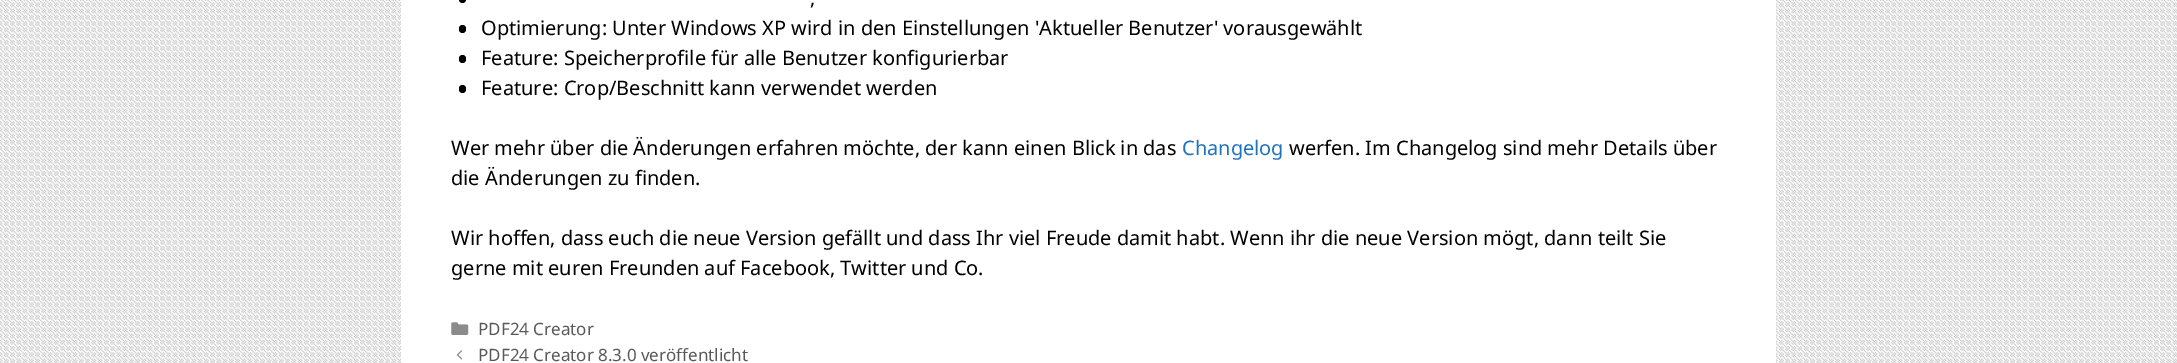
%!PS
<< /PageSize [2177 363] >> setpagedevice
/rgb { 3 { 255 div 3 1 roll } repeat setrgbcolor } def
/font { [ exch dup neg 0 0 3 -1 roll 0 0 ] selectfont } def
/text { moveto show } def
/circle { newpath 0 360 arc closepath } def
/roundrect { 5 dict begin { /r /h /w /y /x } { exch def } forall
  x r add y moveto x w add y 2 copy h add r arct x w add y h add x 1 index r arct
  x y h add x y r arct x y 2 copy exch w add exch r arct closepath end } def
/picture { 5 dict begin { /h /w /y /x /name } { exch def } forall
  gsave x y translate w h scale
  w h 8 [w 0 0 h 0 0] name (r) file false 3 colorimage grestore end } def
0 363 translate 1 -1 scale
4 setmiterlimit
255 255 255 rgb
0 0 2177 363 rectfill
(img_01.rgb) 0 0 2177 363 picture
401 0 1375 363 rectfill
0 0 0 rgb
462.5 -0.5 3.5 circle fill
459 25 7 8 3.5 roundrect fill
459 55 7 8 3.5 roundrect fill
459 85 7 8 3.5 roundrect fill
(img_02.rgb) 451 322 18 13 picture
(img_03.rgb) 456 350 7 10 picture
/NotoSans-Regular 20 font
(,) 810 5 text
(Optimierung: Unter Windows XP wird in den Einstellungen 'Aktueller Benutzer' vorausgewählt) 481 35 text
(Feature: Speicherprofile für alle Benutzer konfigurierbar) 481 65 text
(Feature: Crop/Beschnitt kann verwendet werden) 481 95 text
(Wer mehr über die Änderungen erfahren möchte, der kann einen Blick in das) 451 155 text
30 115 190 rgb
(Changelog) 1182 155 text
0 0 0 rgb
(werfen. Im Changelog sind mehr Details über) 1289 155 text
(die Änderungen zu finden.) 451 185 text
(Wir hoffen, dass euch die neue Version gefällt und dass Ihr viel Freude damit habt. Wenn ihr die neue Version mögt, dann teilt Sie) 451 245 text
(gerne mit euren Freunden auf Facebook, Twitter und Co.) 451 275 text
/NotoSans-Regular 17 font
89 89 89 rgb
(PDF24 Creator) 478 335 text
(PDF24 Creator 8.3.0 veröffentlicht) 478 361 text
showpage
